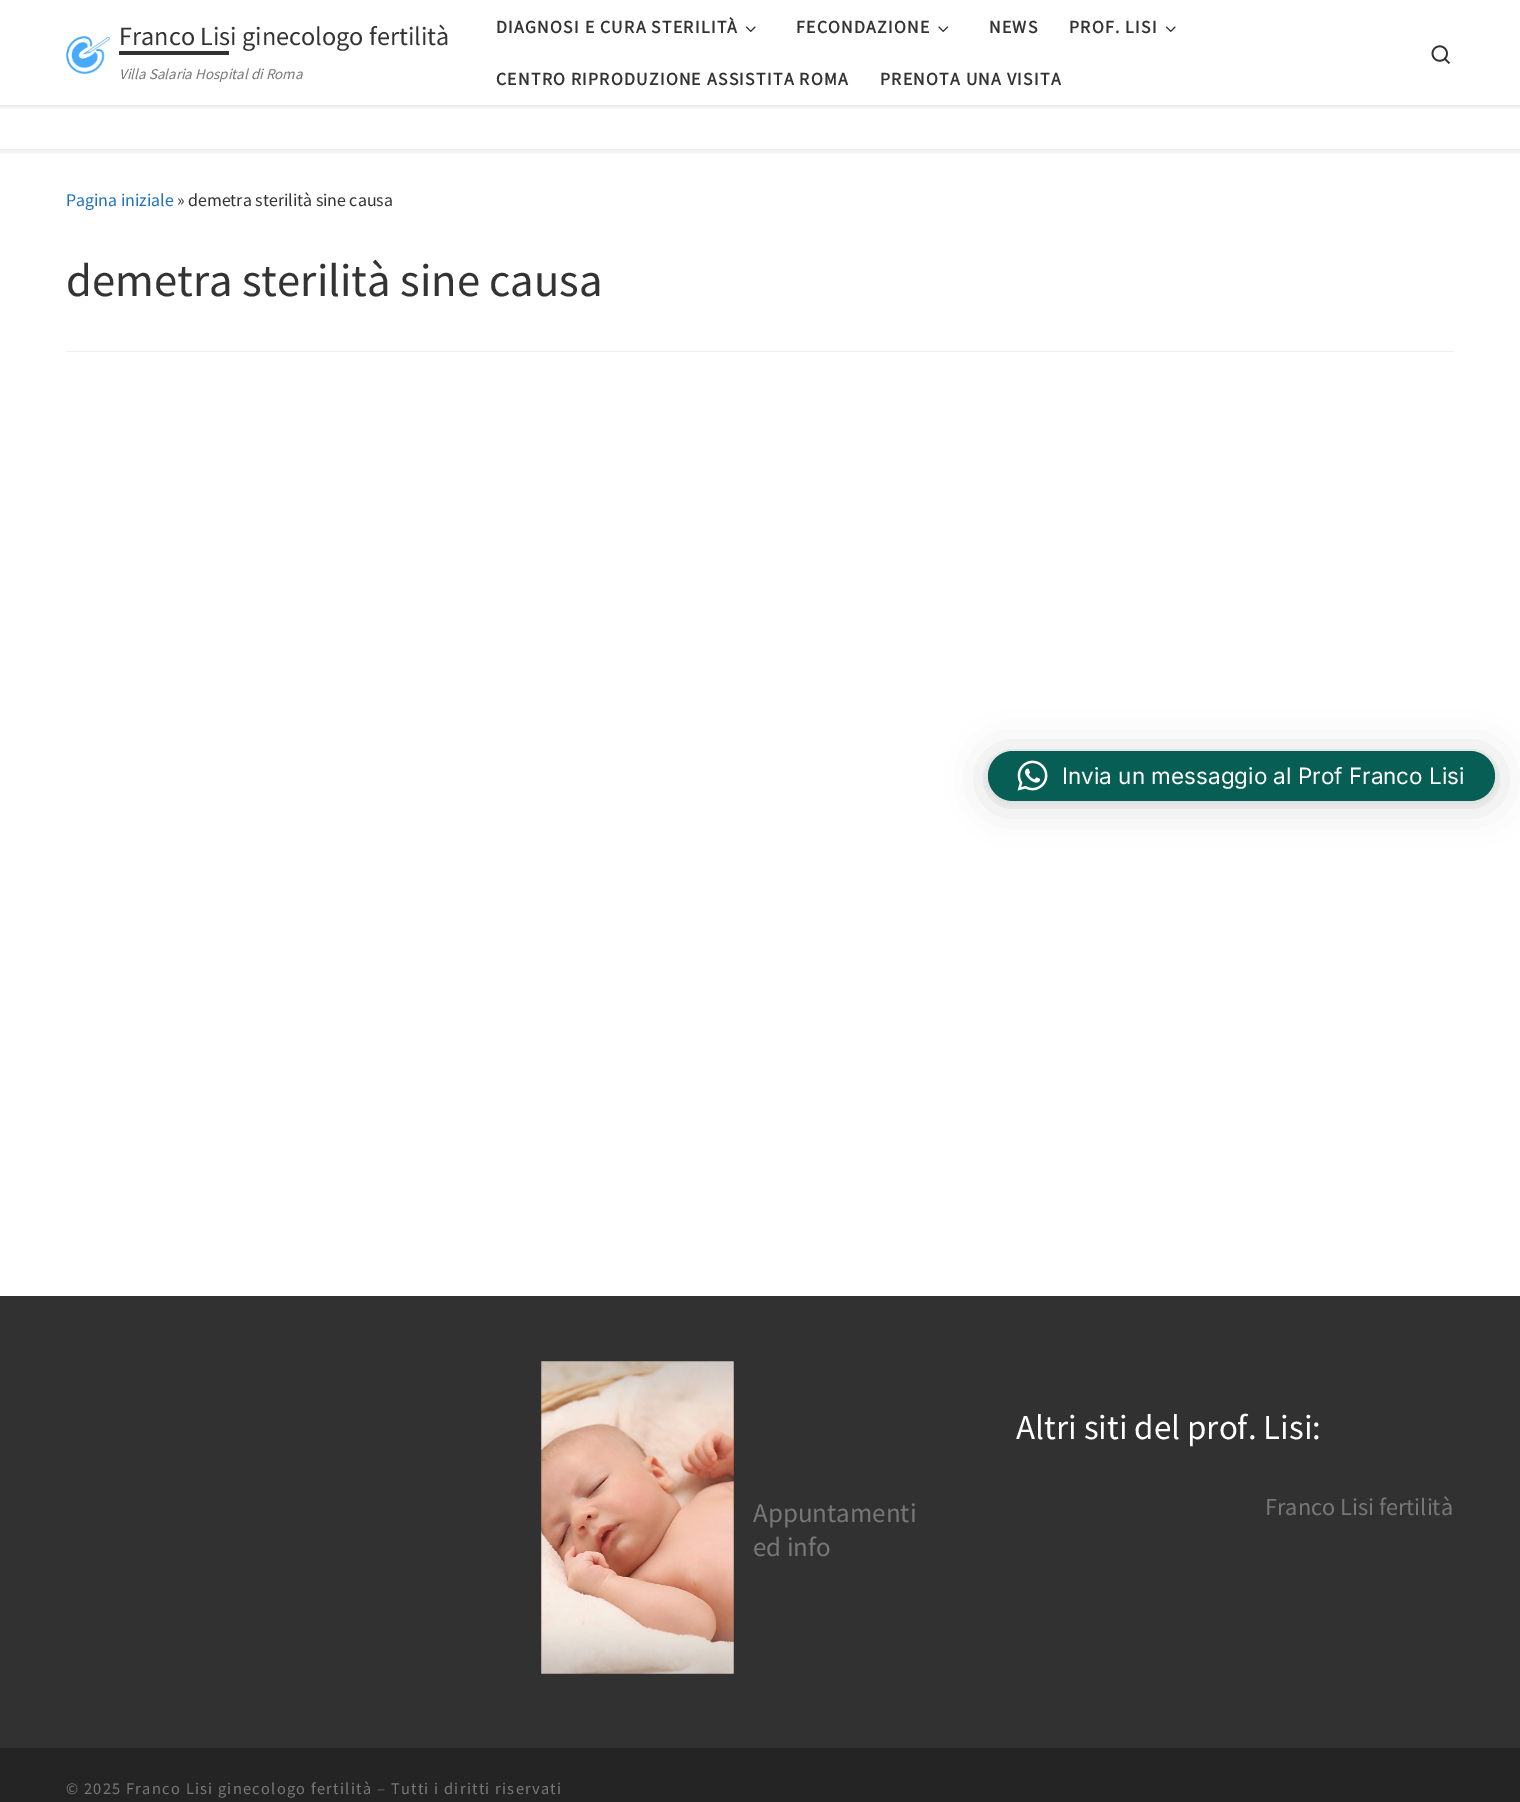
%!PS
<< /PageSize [1520 1802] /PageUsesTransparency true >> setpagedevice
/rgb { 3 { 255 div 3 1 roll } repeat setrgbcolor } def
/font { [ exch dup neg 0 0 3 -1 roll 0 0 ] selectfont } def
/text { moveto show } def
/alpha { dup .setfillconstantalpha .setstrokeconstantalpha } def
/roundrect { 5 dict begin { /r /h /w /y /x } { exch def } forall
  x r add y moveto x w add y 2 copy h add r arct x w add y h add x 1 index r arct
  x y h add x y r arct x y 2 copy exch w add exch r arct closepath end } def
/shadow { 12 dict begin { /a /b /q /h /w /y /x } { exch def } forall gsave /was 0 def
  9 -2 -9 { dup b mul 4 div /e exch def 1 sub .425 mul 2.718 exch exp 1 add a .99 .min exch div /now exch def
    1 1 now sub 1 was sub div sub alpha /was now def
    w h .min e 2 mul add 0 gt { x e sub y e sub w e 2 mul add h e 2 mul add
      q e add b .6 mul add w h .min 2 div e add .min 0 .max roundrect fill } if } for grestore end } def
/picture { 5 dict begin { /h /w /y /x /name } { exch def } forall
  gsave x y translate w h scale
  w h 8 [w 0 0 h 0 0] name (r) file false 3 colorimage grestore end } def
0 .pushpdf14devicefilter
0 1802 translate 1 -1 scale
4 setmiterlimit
255 255 255 rgb
0 0 1520 1802 rectfill
gsave
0 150 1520 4 rectclip
102 102 102 rgb
0 -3 1520 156 0 1 0.08 shadow
grestore
236 236 236 rgb
0 149 1520 1 rectfill
gsave
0 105 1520 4 rectclip
0 0 0 rgb
0 0 1520 105 0 3 0.2 shadow
grestore
(img_01.rgb) 66 36 45 38 picture
49 49 49 rgb
119 51 110 4 rectfill
(img_02.rgb) 745 26 11 7 picture
(img_03.rgb) 938 26 11 7 picture
(img_02.rgb) 1165 26 11 7 picture
(img_04.rgb) 1431 45 20 19 picture
236 238 239 rgb
66 351 1388 1 rectfill
49 49 49 rgb
0 1296 1520 452 rectfill
(img_05.rgb) 541 1361 193 313 picture
36 36 36 rgb
0 1748 1520 54 rectfill
0 0 0 rgb
988 754 507 50 25 20 0.16 shadow
988 753 507 50 25 4 0.06 shadow
7 94 84 rgb
988 751 507 50 25 roundrect fill
(img_06.rgb) 1017 760 31 31 picture
/SourceSansPro-Regular 26.25 font
51 51 51 rgb
(Franco Lisi ginecologo fertilità) 119 45 text
/SourceSansPro-Italic 15 font
119 119 119 rgb
(Villa Salaria Hospital di Roma) 119 79 text
/SourceSansPro-Bold 17.8 font
51 51 51 rgb
496 33 moveto 1.25 0 (DIAGNOSI E CURA STERILITÀ) ashow
796 33 moveto 1.25 0 (FECONDAZIONE) ashow
989 33 moveto 1.25 0 (NEWS) ashow
1069 33 moveto 1.25 0 (PROF. LISI) ashow
496 85 moveto 1.25 0 (CENTRO RIPRODUZIONE ASSISTITA ROMA) ashow
880 85 moveto 1.25 0 (PRENOTA UNA VISITA) ashow
/SourceSansPro-Regular 17.8 font
30 115 190 rgb
(Pagina iniziale) 66 206 text
51 51 51 rgb
(» demetra sterilità sine causa) 177 206 text
/SourceSansPro-Regular 46.7 font
(demetra sterilità sine causa) 66 296 text
/SourceSansPro-Regular 35 font
255 255 255 rgb
(Altri siti del prof. Lisi:) 1016 1439 text
/SourceSansPro-Regular 24.25 font
119 119 119 rgb
(Franco Lisi fertilità) 1265 1515 text
/SourceSansPro-Regular 27 font
(Appuntamenti) 753 1522 text
(ed info) 753 1556 text
/SourceSansPro-Regular 16.4 font
66 1794 moveto 1.25 0 (© 2025 Franco Lisi ginecologo fertilità – Tutti i diritti riservati) ashow
/Inter-Regular 22.5 font
255 255 255 rgb
(Invia un messaggio al Prof Franco Lisi) 1062 784 text
.poppdf14devicefilter showpage
